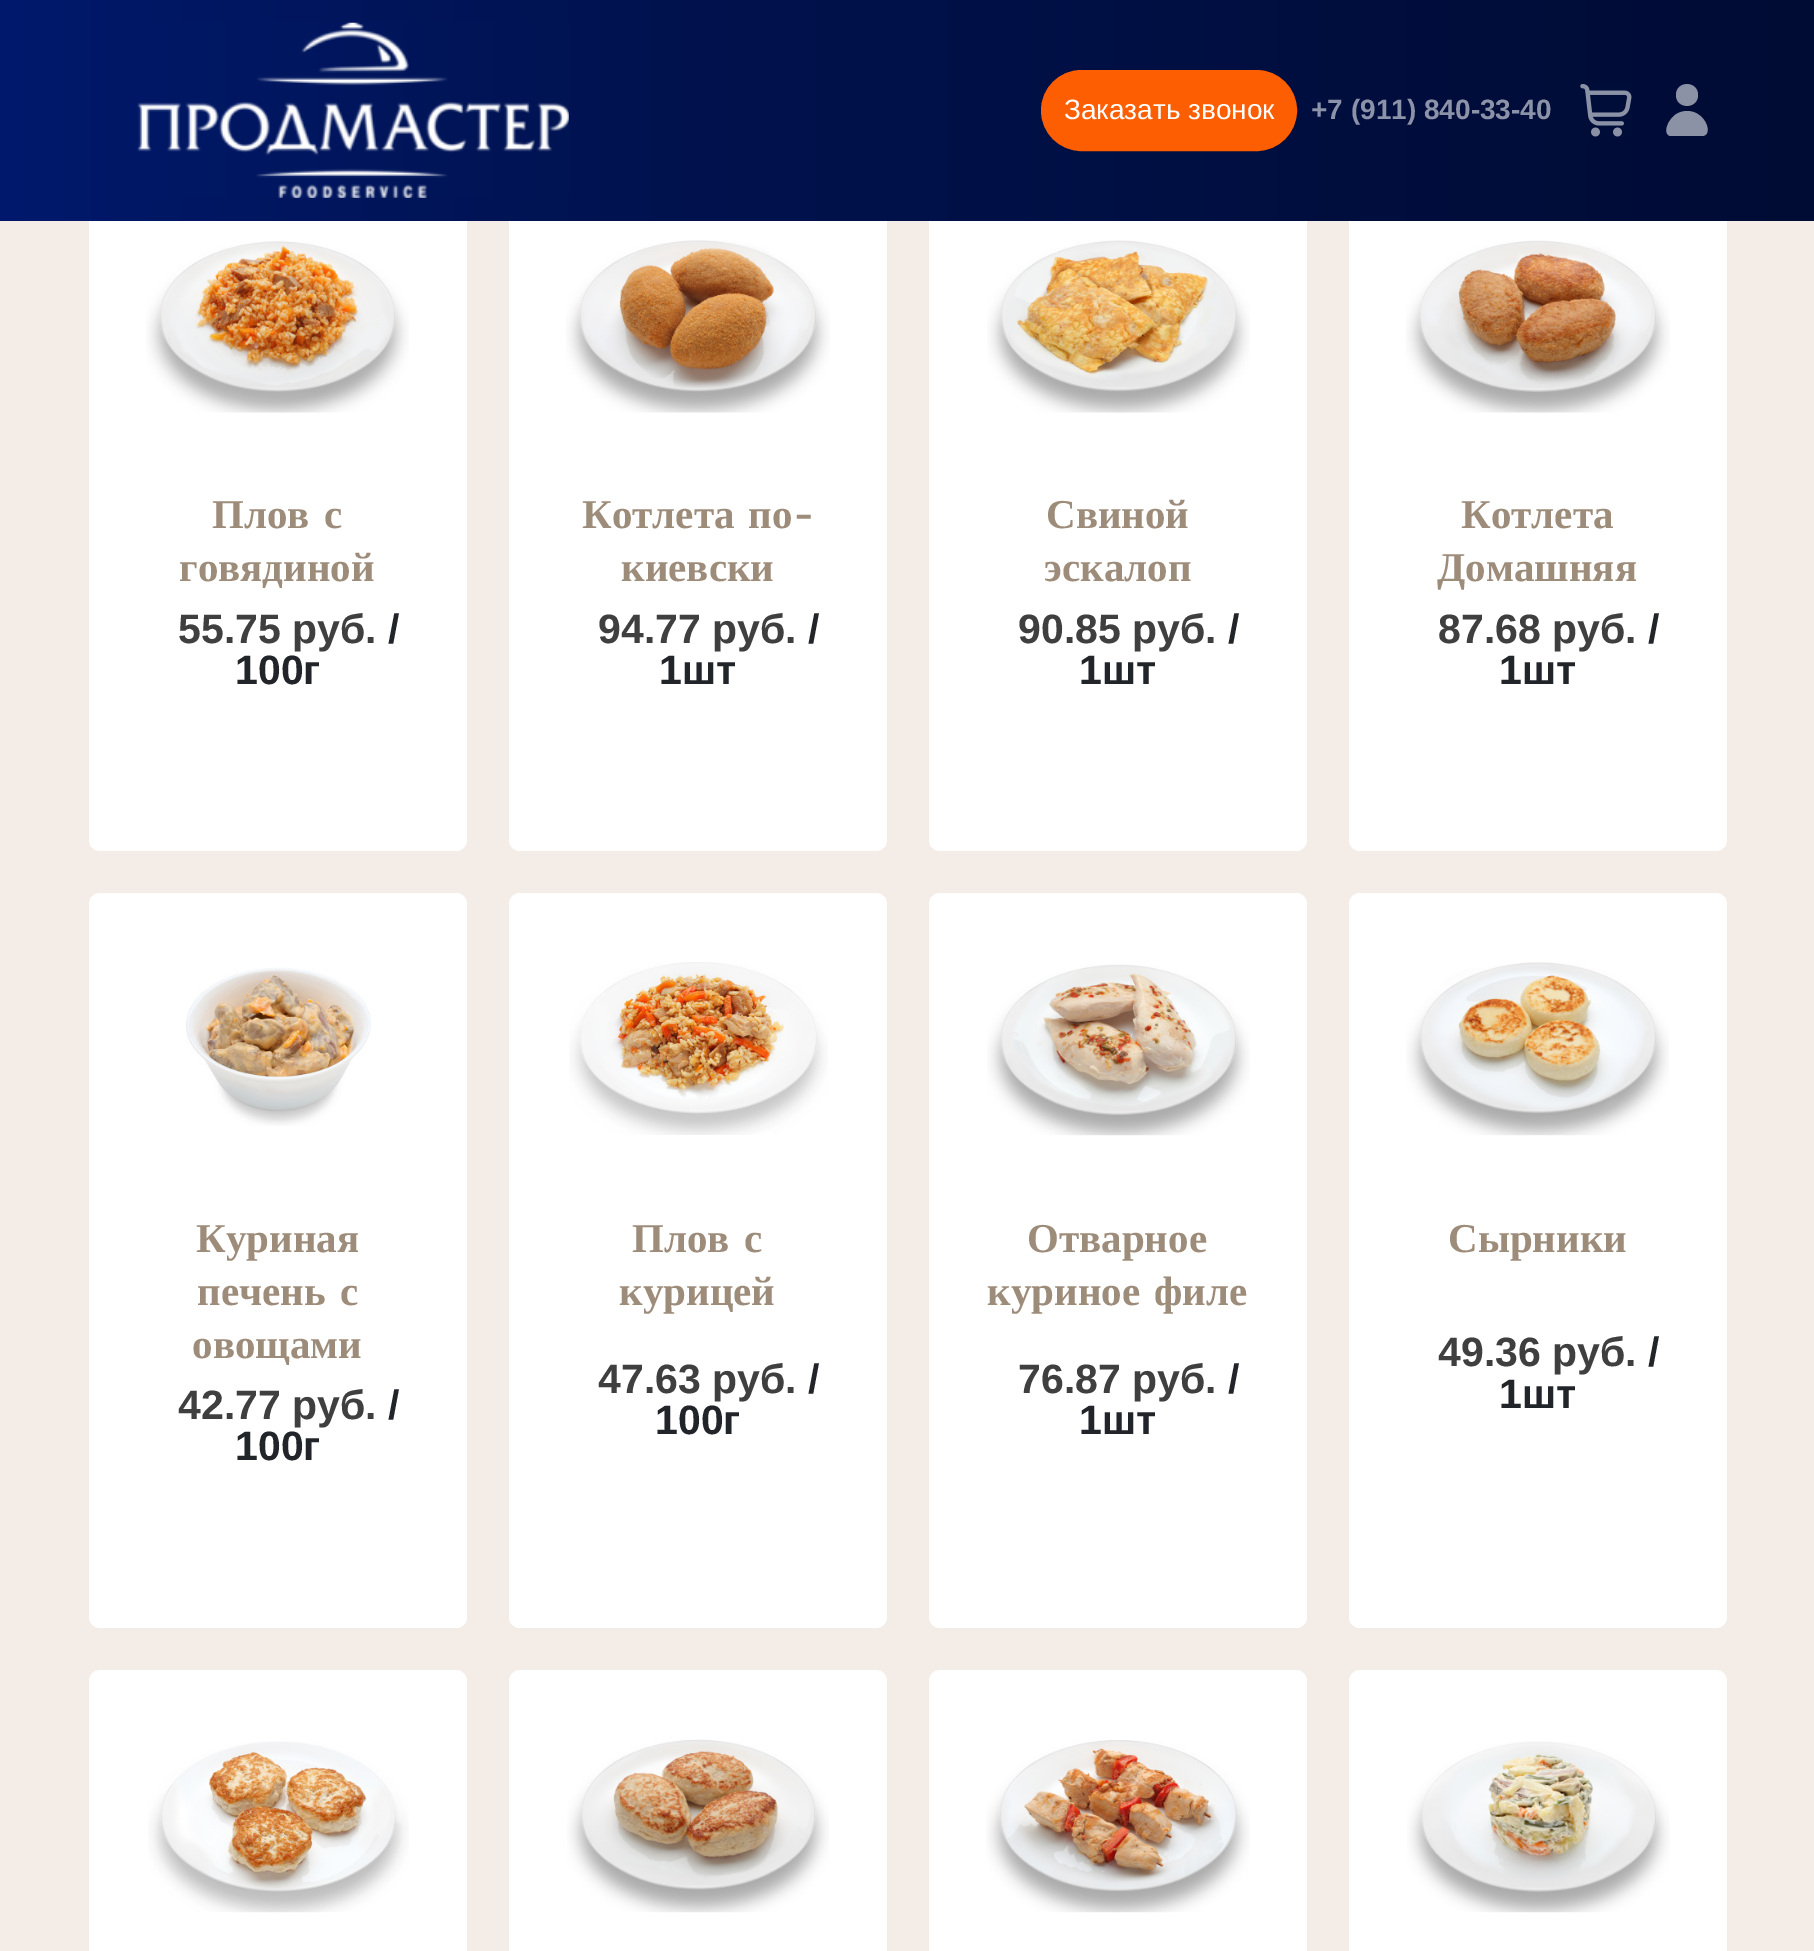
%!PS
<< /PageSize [1814 1951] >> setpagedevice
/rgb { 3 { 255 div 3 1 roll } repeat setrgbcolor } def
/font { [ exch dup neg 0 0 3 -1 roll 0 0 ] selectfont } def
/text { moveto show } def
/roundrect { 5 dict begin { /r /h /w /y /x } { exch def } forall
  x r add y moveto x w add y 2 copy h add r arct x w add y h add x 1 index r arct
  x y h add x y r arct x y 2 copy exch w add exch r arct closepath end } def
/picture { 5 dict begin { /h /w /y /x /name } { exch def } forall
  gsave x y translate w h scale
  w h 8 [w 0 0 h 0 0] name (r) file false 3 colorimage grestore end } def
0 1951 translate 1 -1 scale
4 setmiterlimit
244 237 231 rgb
0 0 1814 1951 rectfill
255 255 255 rgb
89 170 378 681 11 roundrect fill
509 170 378 681 11 roundrect fill
929 170 378 681 11 roundrect fill
1349 170 378 681 11 roundrect fill
gsave 0 0 moveto 1814 0 rlineto 0 221 rlineto -1814 0 rlineto closepath clip newpath
<< /ShadingType 2 /ColorSpace /DeviceRGB /Coords [0 110 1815 110] /Extend [true true] /Function << /FunctionType 3 /Domain [0 1] /Functions [<< /FunctionType 2 /Domain [0 1] /C0 [0 0.098 0.424] /C1 [0 0.071 0.31] /N 1 >> << /FunctionType 2 /Domain [0 1] /C0 [0 0.071 0.31] /C1 [0 0.047 0.204] /N 1 >>] /Bounds [0.35] /Encode [0 1 0 1] >> >> shfill grestore
(img_01.rgb) 137 22 432 176 picture
253 94 2 rgb
1042 71 254 79 39.5 roundrect gsave fill grestore
2 setlinewidth
stroke
(img_02.rgb) 1580 84 52 53 picture
140 146 165 rgb
1698 95 moveto 0 14.5 -22 14.5 -22 0 rcurveto 0 -14.5 22 -14.5 22 0 rcurveto closepath 1687 111 moveto -5 0 -11 2 -14 6 rcurveto -4 3 -11 16 -3 19 rcurveto 32 0 rlineto 12 0 4 -25 -15 -25 rcurveto closepath fill
(img_03.rgb) 146 241 263 172 picture
(img_04.rgb) 566 240 264 173 picture
(img_05.rgb) 987 240 263 173 picture
(img_06.rgb) 1406 240 264 173 picture
255 255 255 rgb
89 893 378 735 11 roundrect fill
(img_07.rgb) 185 967 186 159 picture
509 893 378 735 11 roundrect fill
(img_08.rgb) 569 962 259 173 picture
929 893 378 735 11 roundrect fill
(img_09.rgb) 987 964 263 172 picture
1349 893 378 735 11 roundrect fill
(img_10.rgb) 1406 962 263 174 picture
89 1670 378 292 11 roundrect fill
(img_11.rgb) 148 1741 261 172 picture
509 1670 378 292 11 roundrect fill
(img_12.rgb) 567 1739 262 174 picture
929 1670 378 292 11 roundrect fill
(img_13.rgb) 986 1740 264 173 picture
1349 1670 378 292 11 roundrect fill
(img_14.rgb) 1407 1741 263 172 picture
/LiberationSans-Regular 28 font
(Заказать звонок) 1064 119 text
/LiberationSans-Bold 28 font
140 146 168 rgb
(+7 \(911\) 840-33-40) 1311 119 text
/LiberationSerif-Bold 41 font
157 140 122 rgb
212 528 moveto 4 0 32 (Плов с) widthshow
(говядиной) 179 581 text
/LiberationSans-Bold 41 font
63 63 63 rgb
(55.75 руб.) 178 643 text
33 37 41 rgb
(/) 388 643 text
(100г) 235 684 text
/LiberationSerif-Bold 41 font
157 140 122 rgb
582 528 moveto 4 0 32 (Котлета по) widthshow
/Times-Bold 41 font
(-) 794 528 text
/LiberationSerif-Bold 41 font
(киевски) 621 581 text
/LiberationSans-Bold 41 font
63 63 63 rgb
(94.77 руб.) 598 643 text
33 37 41 rgb
(/) 808 643 text
(1шт) 659 684 text
/LiberationSerif-Bold 41 font
157 140 122 rgb
(Свиной) 1046 528 text
(эскалоп) 1044 581 text
/LiberationSans-Bold 41 font
63 63 63 rgb
(90.85 руб.) 1018 643 text
33 37 41 rgb
(/) 1228 643 text
(1шт) 1079 684 text
/LiberationSerif-Bold 41 font
157 140 122 rgb
(Котлета) 1461 528 text
(Домашняя) 1437 581 text
/LiberationSans-Bold 41 font
63 63 63 rgb
(87.68 руб.) 1438 643 text
33 37 41 rgb
(/) 1648 643 text
(1шт) 1499 684 text
/LiberationSerif-Bold 41 font
157 140 122 rgb
(Куриная) 196 1252 text
197 1305 moveto 4 0 32 (печень с) widthshow
(овощами) 192 1358 text
/LiberationSans-Bold 41 font
63 63 63 rgb
(42.77 руб.) 178 1419 text
33 37 41 rgb
(/) 388 1419 text
(100г) 235 1460 text
/LiberationSerif-Bold 41 font
157 140 122 rgb
632 1252 moveto 4 0 32 (Плов с) widthshow
(курицей) 619 1305 text
/LiberationSans-Bold 41 font
63 63 63 rgb
(47.63 руб.) 598 1393 text
33 37 41 rgb
(/) 808 1393 text
(100г) 655 1434 text
/LiberationSerif-Bold 41 font
157 140 122 rgb
(Отварное) 1027 1252 text
987 1305 moveto 4 0 32 (куриное филе) widthshow
/LiberationSans-Bold 41 font
63 63 63 rgb
(76.87 руб.) 1018 1393 text
33 37 41 rgb
(/) 1228 1393 text
(1шт) 1079 1434 text
/LiberationSerif-Bold 41 font
157 140 122 rgb
(Сырники) 1448 1252 text
/LiberationSans-Bold 41 font
63 63 63 rgb
(49.36 руб.) 1438 1366 text
33 37 41 rgb
(/) 1648 1366 text
(1шт) 1499 1408 text
showpage
